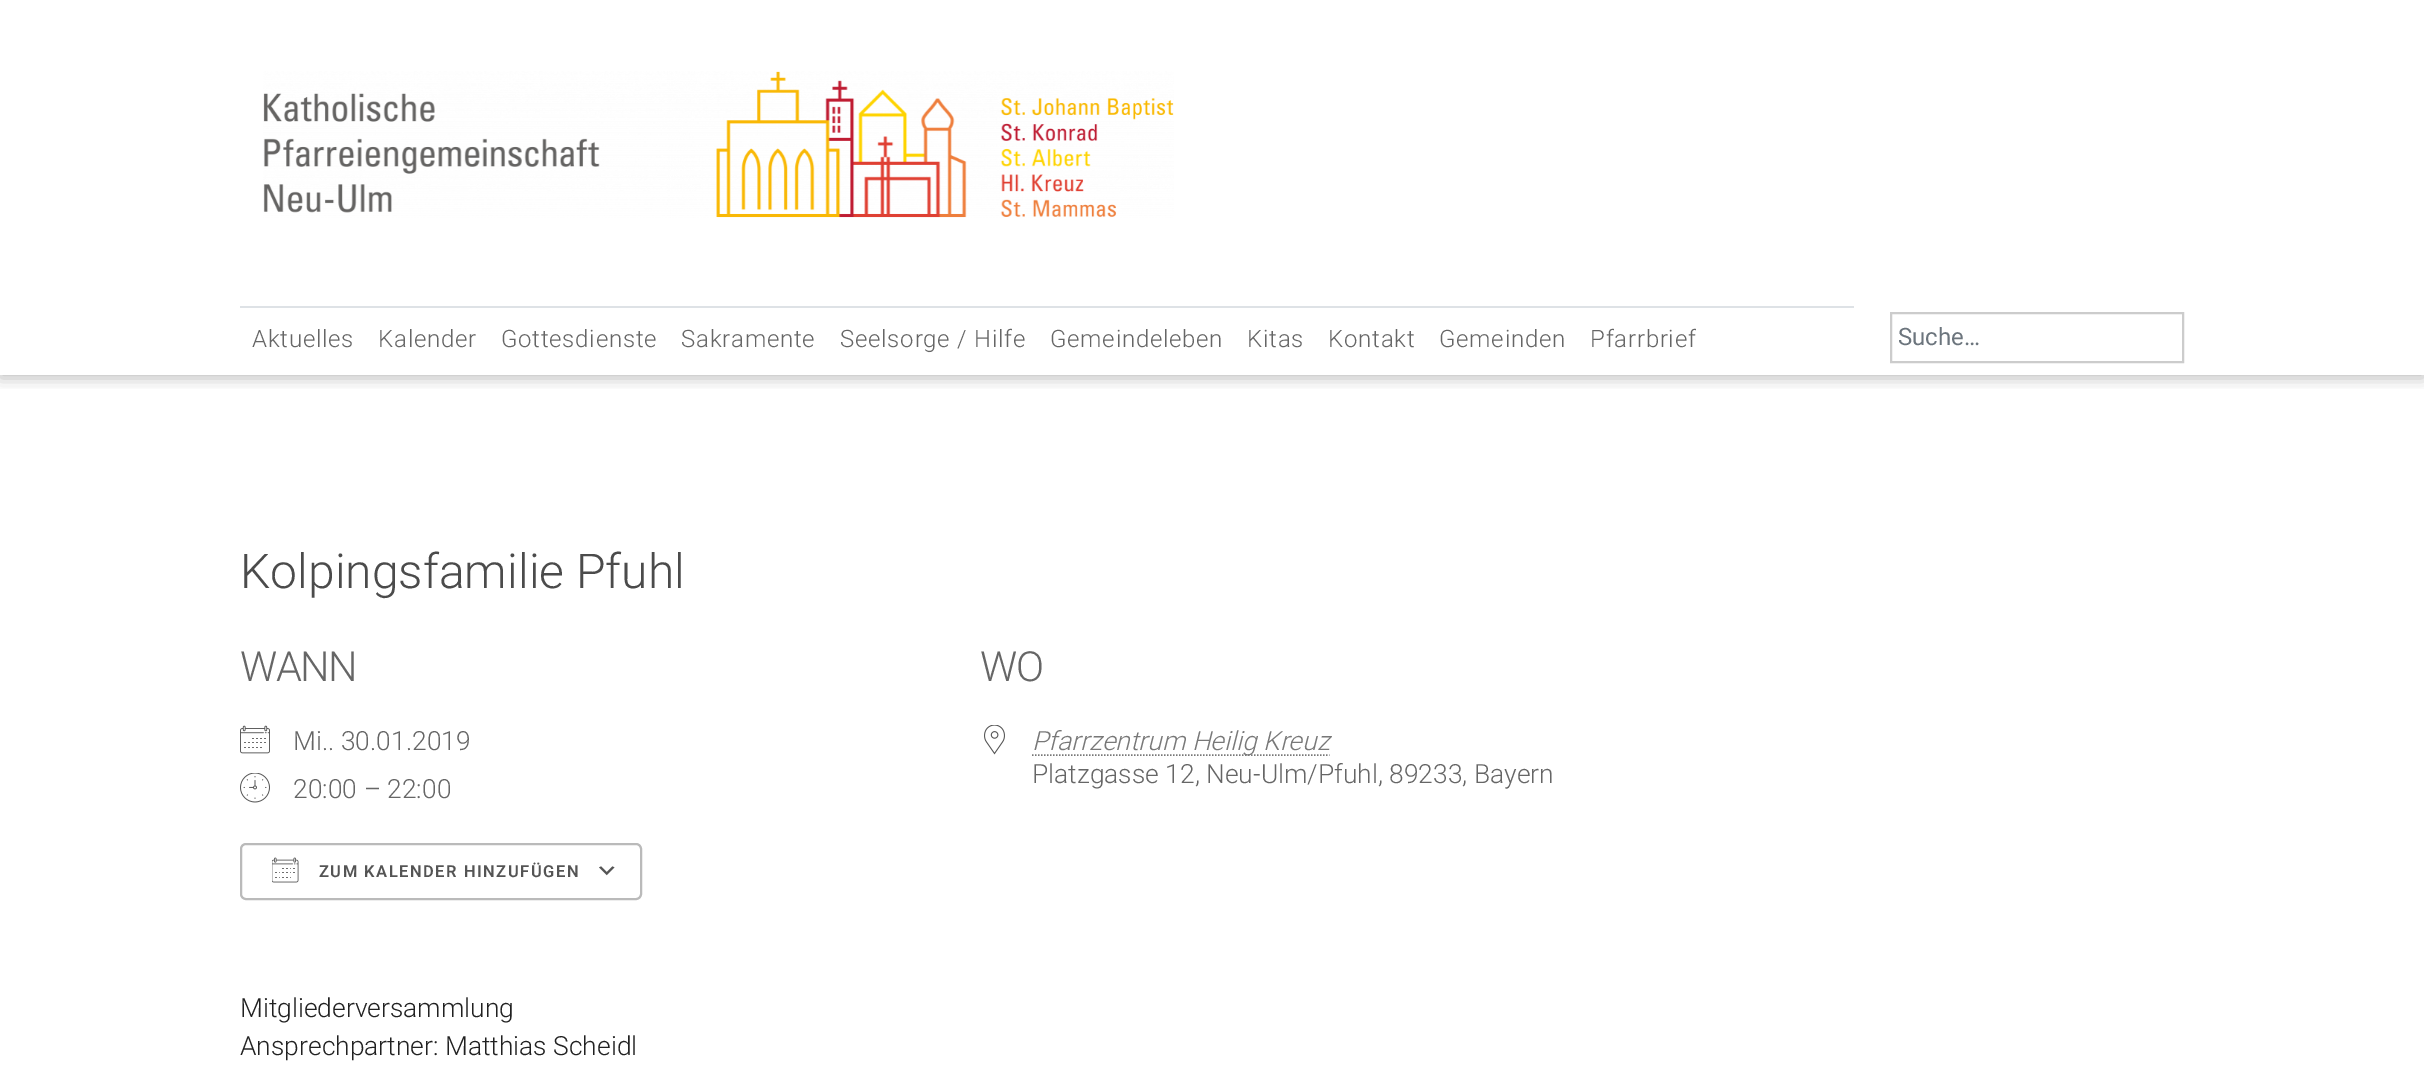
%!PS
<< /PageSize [2424 1090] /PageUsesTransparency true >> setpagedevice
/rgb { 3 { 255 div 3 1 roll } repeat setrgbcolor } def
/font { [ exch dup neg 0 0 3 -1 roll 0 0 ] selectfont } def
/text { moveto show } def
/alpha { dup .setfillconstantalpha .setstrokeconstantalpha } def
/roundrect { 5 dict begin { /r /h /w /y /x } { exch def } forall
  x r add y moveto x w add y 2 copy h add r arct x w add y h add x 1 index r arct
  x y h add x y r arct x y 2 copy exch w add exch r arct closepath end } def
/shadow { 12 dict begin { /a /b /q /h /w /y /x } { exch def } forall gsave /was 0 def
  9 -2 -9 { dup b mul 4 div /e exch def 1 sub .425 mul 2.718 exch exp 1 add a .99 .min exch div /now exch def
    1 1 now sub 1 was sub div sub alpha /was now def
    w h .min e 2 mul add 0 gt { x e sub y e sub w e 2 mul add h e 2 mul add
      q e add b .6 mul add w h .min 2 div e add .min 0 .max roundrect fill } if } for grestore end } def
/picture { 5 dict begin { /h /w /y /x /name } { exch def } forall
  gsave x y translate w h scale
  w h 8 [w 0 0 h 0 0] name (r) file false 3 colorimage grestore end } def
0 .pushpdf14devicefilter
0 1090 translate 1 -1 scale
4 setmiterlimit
255 255 255 rgb
0 0 2424 1090 rectfill
gsave
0 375 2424 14 rectclip
0 0 0 rgb
0 3 2424 375 0 7.5 0.25 shadow
grestore
(img_01.rgb) 263 71 911 147 picture
222 226 230 rgb
240 306 1614 2 rectfill
204 204 204 rgb
2 setlinewidth
1891 313 292 49 rectstroke
(img_02.rgb) 240 725 30 29 picture
(img_03.rgb) 240 773 30 30 picture
(img_04.rgb) 599 866 16 10 picture
186 186 186 rgb
241 844 400 55 5 roundrect stroke
(img_05.rgb) 272 857 27 26 picture
(img_06.rgb) 984 725 21 30 picture
120 120 120 rgb
1.5 setlinewidth
[1.5 1.5] 0 setdash
1032 755 moveto 297.5 0 rlineto stroke
/Roboto-Light 24 font
102 102 102 rgb
252 347 moveto 0.75 0 (Aktuelles) ashow
378 347 moveto 0.75 0 (Kalender) ashow
501 347 moveto 0.75 0 (Gottesdienste) ashow
681 347 moveto 0.75 0 (Sakramente) ashow
840 347 moveto 0.75 0 (Seelsorge / Hilfe) ashow
1050 347 moveto 0.75 0 (Gemeindeleben) ashow
1247 347 moveto 0.75 0 (Kitas) ashow
1328 347 moveto 0.75 0 (Kontakt) ashow
1439 347 moveto 0.75 0 (Gemeinden) ashow
1590 347 moveto 0.75 0 (Pfarrbrief) ashow
/Roboto-Regular 24 font
108 117 125 rgb
(Suche…) 1898 345 text
/Roboto-Light 48 font
75 75 75 rgb
(Kolpingsfamilie Pfuhl) 240 588 text
/Roboto-Light 41.5 font
102 102 102 rgb
240 681 moveto -1.5 0 (WANN) ashow
/Roboto-Light 26.4 font
(Mi.. 30.01.2019) 293 750 text
(20:00 – 22:00) 293 798 text
/Roboto-SemiBold 16.5 font
84 84 84 rgb
319 877 moveto 1.5 0 (ZUM KALENDER HINZUFÜGEN) ashow
/Roboto-Light 41.5 font
102 102 102 rgb
980 681 moveto -1.5 0 (WO) ashow
/Roboto-LightItalic 26.4 font
120 120 120 rgb
(Pfarrzentrum Heilig Kreuz) 1032 750 text
/Roboto-Light 26.4 font
102 102 102 rgb
(Platzgasse 12, Neu-Ulm/Pfuhl, 89233, Bayern) 1032 783 text
33 33 33 rgb
(Mitgliederversammlung) 240 1017 text
(Ansprechpartner: Matthias Scheidl) 240 1055 text
.poppdf14devicefilter showpage
